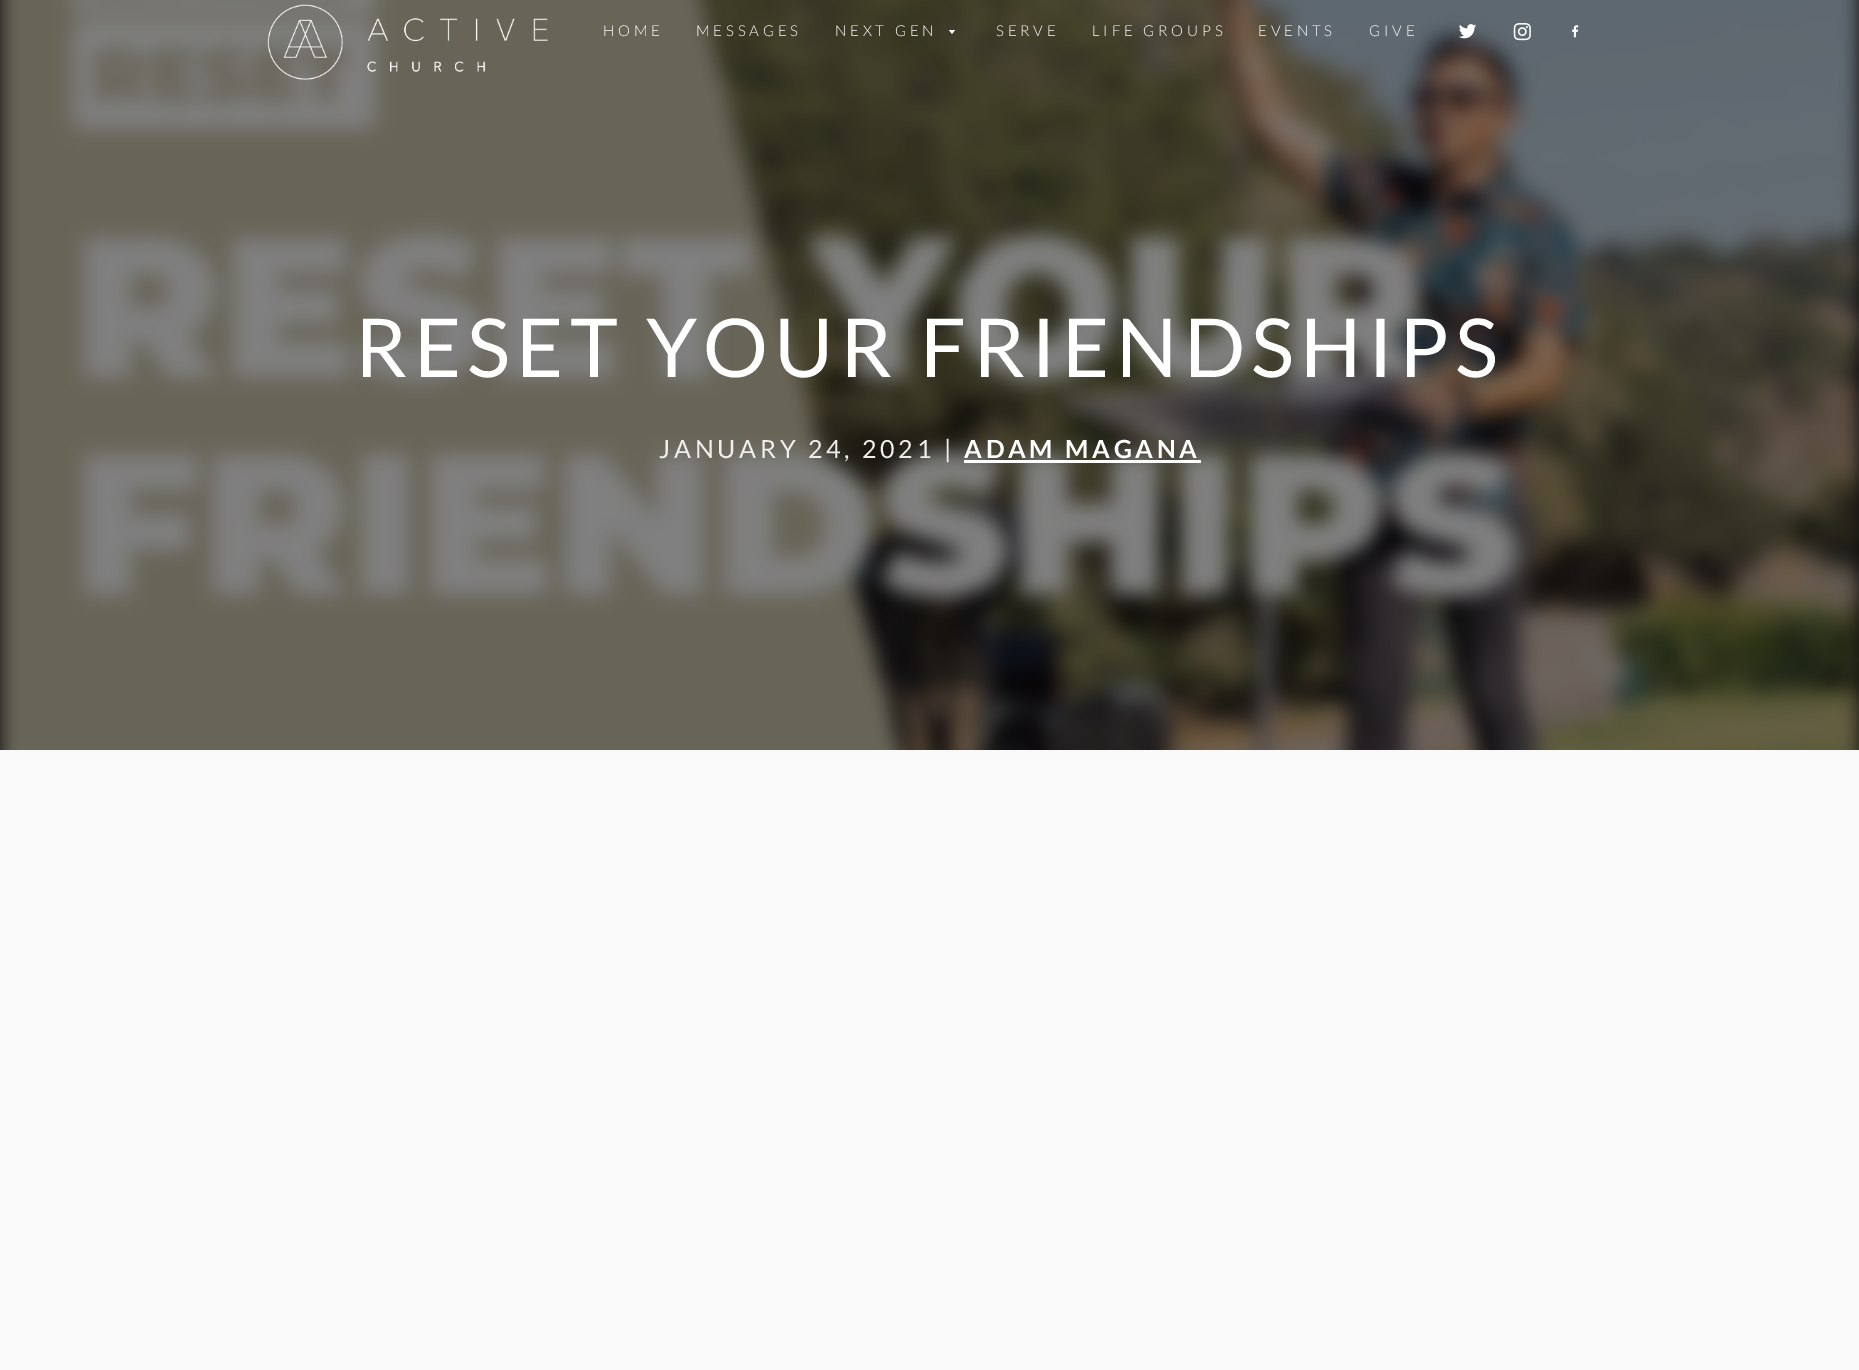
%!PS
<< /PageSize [1859 1370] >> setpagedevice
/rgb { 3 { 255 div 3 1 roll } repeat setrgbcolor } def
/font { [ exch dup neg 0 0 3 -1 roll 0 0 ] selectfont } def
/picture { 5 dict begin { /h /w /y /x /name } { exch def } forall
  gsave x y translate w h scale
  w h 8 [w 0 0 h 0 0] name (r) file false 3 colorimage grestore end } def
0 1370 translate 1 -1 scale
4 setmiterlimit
249 249 249 rgb
0 0 1859 1370 rectfill
8 8 8 rgb
0 0 1859 750 rectfill
(img_05.rgb) 0 0 1859 750 picture
(img_01.rgb) 267 4 281 76 picture
255 255 255 rgb
955 30 moveto -3 4 rlineto -3 -4 rlineto closepath fill
(img_02.rgb) 1459 24 17 15 picture
(img_03.rgb) 1513 23 18 18 picture
(img_04.rgb) 1572 25 7 13 picture
964 460 237 3 rectfill
/Lato-Light 15 font
603 36 moveto 3.75 0 (HOME) ashow
696 36 moveto 3.75 0 (MESSAGES) ashow
835 36 moveto 3.75 0 (NEXT GEN) ashow
996 36 moveto 3.75 0 (SERVE) ashow
1092 36 moveto 3.75 0 (LIFE GROUPS) ashow
1258 36 moveto 3.75 0 (EVENTS) ashow
1369 36 moveto 3.75 0 (GIVE) ashow
/Lato-Regular 81.25 font
355 377 moveto 6.25 0 (RESET YOUR FRIENDSHIPS) ashow
/Lato-Regular 25 font
239 239 239 rgb
659 458 moveto 3.75 0 (JANUARY 24, 2021 |) ashow
/Lato-Bold 25 font
255 255 255 rgb
964 458 moveto 3.75 0 (ADAM MAGANA) ashow
showpage
